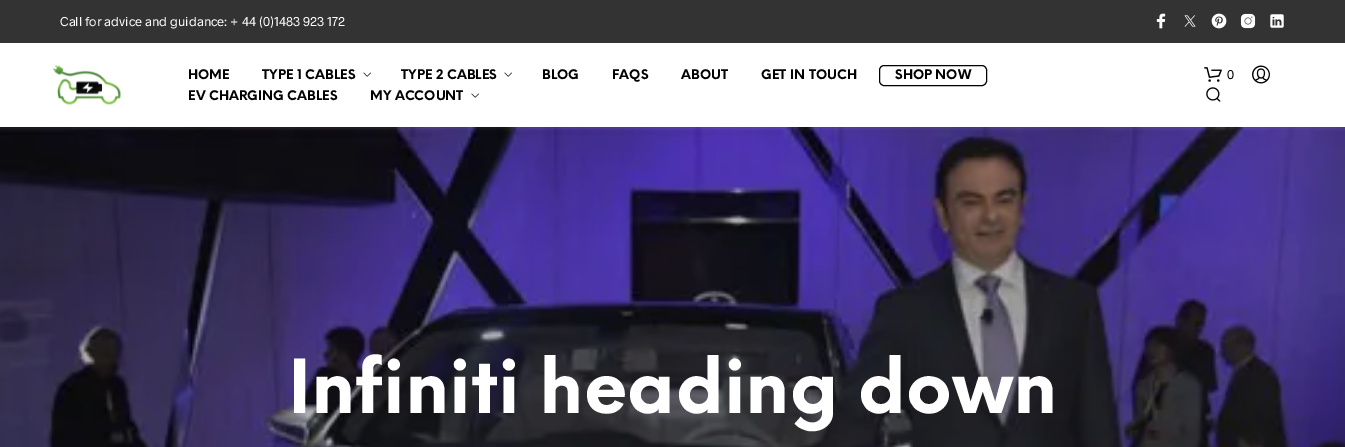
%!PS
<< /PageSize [1345 447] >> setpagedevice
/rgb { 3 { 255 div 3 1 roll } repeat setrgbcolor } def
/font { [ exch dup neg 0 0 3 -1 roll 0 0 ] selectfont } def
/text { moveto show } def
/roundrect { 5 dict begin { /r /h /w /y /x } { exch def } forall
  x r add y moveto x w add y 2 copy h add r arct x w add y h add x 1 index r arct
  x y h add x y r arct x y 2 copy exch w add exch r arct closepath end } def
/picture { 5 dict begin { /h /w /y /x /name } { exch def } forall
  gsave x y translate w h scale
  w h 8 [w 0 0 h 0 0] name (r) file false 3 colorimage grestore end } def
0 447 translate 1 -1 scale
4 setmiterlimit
255 255 255 rgb
0 0 1345 447 rectfill
51 51 51 rgb
0 0 1345 43 rectfill
(img_01.rgb) 1156 13 10 16 picture
(img_02.rgb) 1184 15 12 12 picture
(img_03.rgb) 1211 13 16 16 picture
(img_04.rgb) 1240 13 16 16 picture
(img_05.rgb) 1270 14 14 14 picture
(img_06.rgb) 52 64 69 41 picture
(img_07.rgb) 363 72 8 5 picture
(img_07.rgb) 504 72 8 5 picture
0 0 0 rgb
879.5 65.5 107 20 4.5 roundrect stroke
(img_07.rgb) 471 93 8 5 picture
(img_08.rgb) 1204 67 18 15 picture
(img_09.rgb) 1252 65 18 19 picture
(img_10.rgb) 1206 87 15 15 picture
(img_11.rgb) 0 127 1345 320 picture
/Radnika-Regular 13 font
255 255 255 rgb
(Call for advice and guidance: + 44 \(0\)1483 923 172) 60 26 text
/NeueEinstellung-Bold 13 font
0 0 0 rgb
(HOME) 188 79 text
(TYPE 1 CABLES) 262 79 text
(TYPE 2 CABLES) 401 79 text
(BLOG) 542 79 text
(FAQS) 612 79 text
(ABOUT) 681 79 text
(GET IN TOUCH) 761 79 text
(SHOP NOW) 895 79 text
(EV CHARGING CABLES) 188 100 text
(MY ACCOUNT) 370 100 text
/Radnika-Regular 13 font
(0) 1227 79 text
/NeueEinstellung-Bold 72.6 font
255 255 255 rgb
(Infiniti heading down) 288 413 text
showpage
